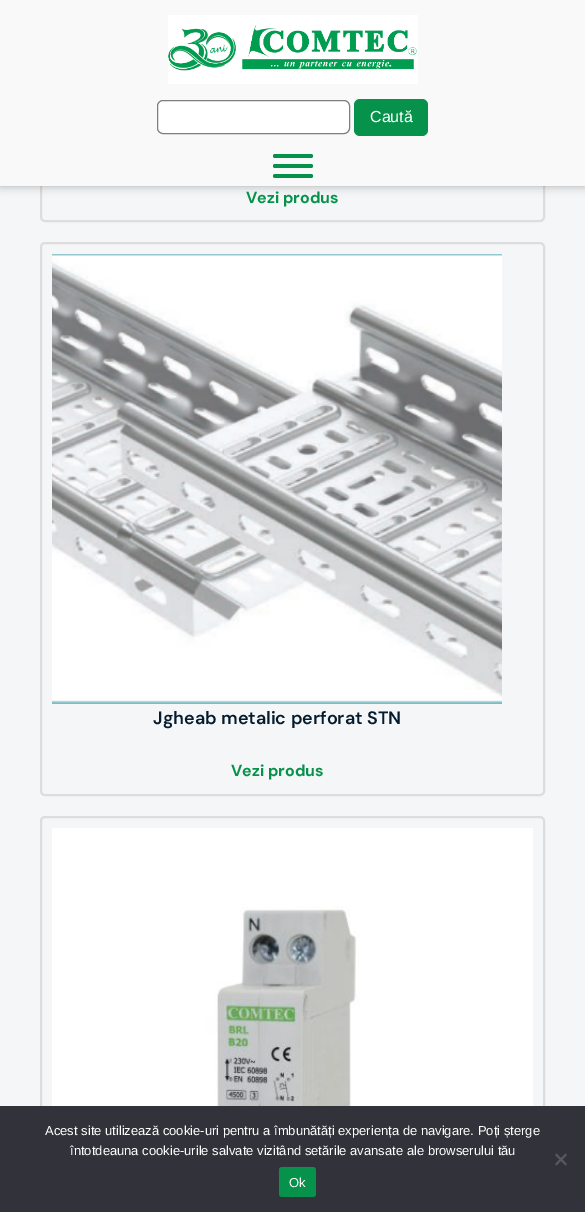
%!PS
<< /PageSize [585 1212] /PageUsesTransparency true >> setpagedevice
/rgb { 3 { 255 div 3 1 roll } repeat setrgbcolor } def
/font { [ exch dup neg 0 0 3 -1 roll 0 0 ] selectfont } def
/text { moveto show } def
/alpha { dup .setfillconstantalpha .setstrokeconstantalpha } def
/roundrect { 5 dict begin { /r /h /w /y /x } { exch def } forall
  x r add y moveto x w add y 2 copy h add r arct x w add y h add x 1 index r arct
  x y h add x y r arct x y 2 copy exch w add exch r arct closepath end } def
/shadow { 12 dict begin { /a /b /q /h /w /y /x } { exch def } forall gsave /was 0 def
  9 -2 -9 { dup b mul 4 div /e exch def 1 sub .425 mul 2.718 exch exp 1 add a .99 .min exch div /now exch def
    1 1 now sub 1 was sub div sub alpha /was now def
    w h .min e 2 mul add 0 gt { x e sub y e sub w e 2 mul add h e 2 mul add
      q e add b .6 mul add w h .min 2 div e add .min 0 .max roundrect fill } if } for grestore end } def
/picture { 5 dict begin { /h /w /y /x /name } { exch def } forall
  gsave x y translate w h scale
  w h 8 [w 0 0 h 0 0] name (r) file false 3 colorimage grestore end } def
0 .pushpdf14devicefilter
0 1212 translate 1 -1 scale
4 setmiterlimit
245 246 247 rgb
0 0 585 1212 rectfill
221 221 222 rgb
2 setlinewidth
41 -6 503 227 4 roundrect stroke
0 0 0 rgb
0 0 585 186 0 5 0.3 shadow
249 249 249 rgb
0 0 585 186 rectfill
(img_01.rgb) 168 15 250 69 picture
255 255 255 rgb
157.5 100.5 192 33 5.5 roundrect gsave fill grestore
127 127 127 rgb
1 setlinewidth
stroke
7 146 76 rgb
354 99 74 37 6 roundrect fill
273 154 40 4 2 roundrect fill
273 164 40 4 2 roundrect fill
273 174 40 4 2 roundrect fill
221 221 222 rgb
2 setlinewidth
41 243 503 552 4 roundrect stroke
(img_02.rgb) 52 254 450 450 picture
41 817 503 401 4 roundrect stroke
(img_03.rgb) 52 828 481 278 picture
50 50 58 rgb
0 1106 585 106 rectfill
89 89 93 rgb
565.5 1153.5 moveto 1.5 1.5 rlineto -10.5 10.5 rlineto -1.5 -1.5 rlineto closepath fill
555 1155 moveto 1.5 -1.5 rlineto 10.5 10.5 rlineto -1.5 1.5 rlineto closepath fill
7 146 76 rgb
279 1167 37 30 3 roundrect fill
/LiberationSans-Regular 16 font
255 255 255 rgb
(Caută) 370 122 text
/DMSans-Bold 16 font
7 146 76 rgb
(Vezi produs) 246 203 text
/DMSans-SemiBold 18 font
5 28 47 rgb
(Jgheab metalic perforat STN) 153 724 text
/DMSans-Bold 16 font
7 146 76 rgb
(Vezi produs) 231 776 text
/LiberationSans-Regular 13 font
255 255 255 rgb
(Acest site utilizează cookie-uri pentru a îmbunătăți experiența de navigare. Poți șterge) 45 1135 text
(întotdeauna cookie-urile salvate vizitând setările avansate ale browserului tău) 70 1155 text
(Ok) 289 1187 text
.poppdf14devicefilter showpage
